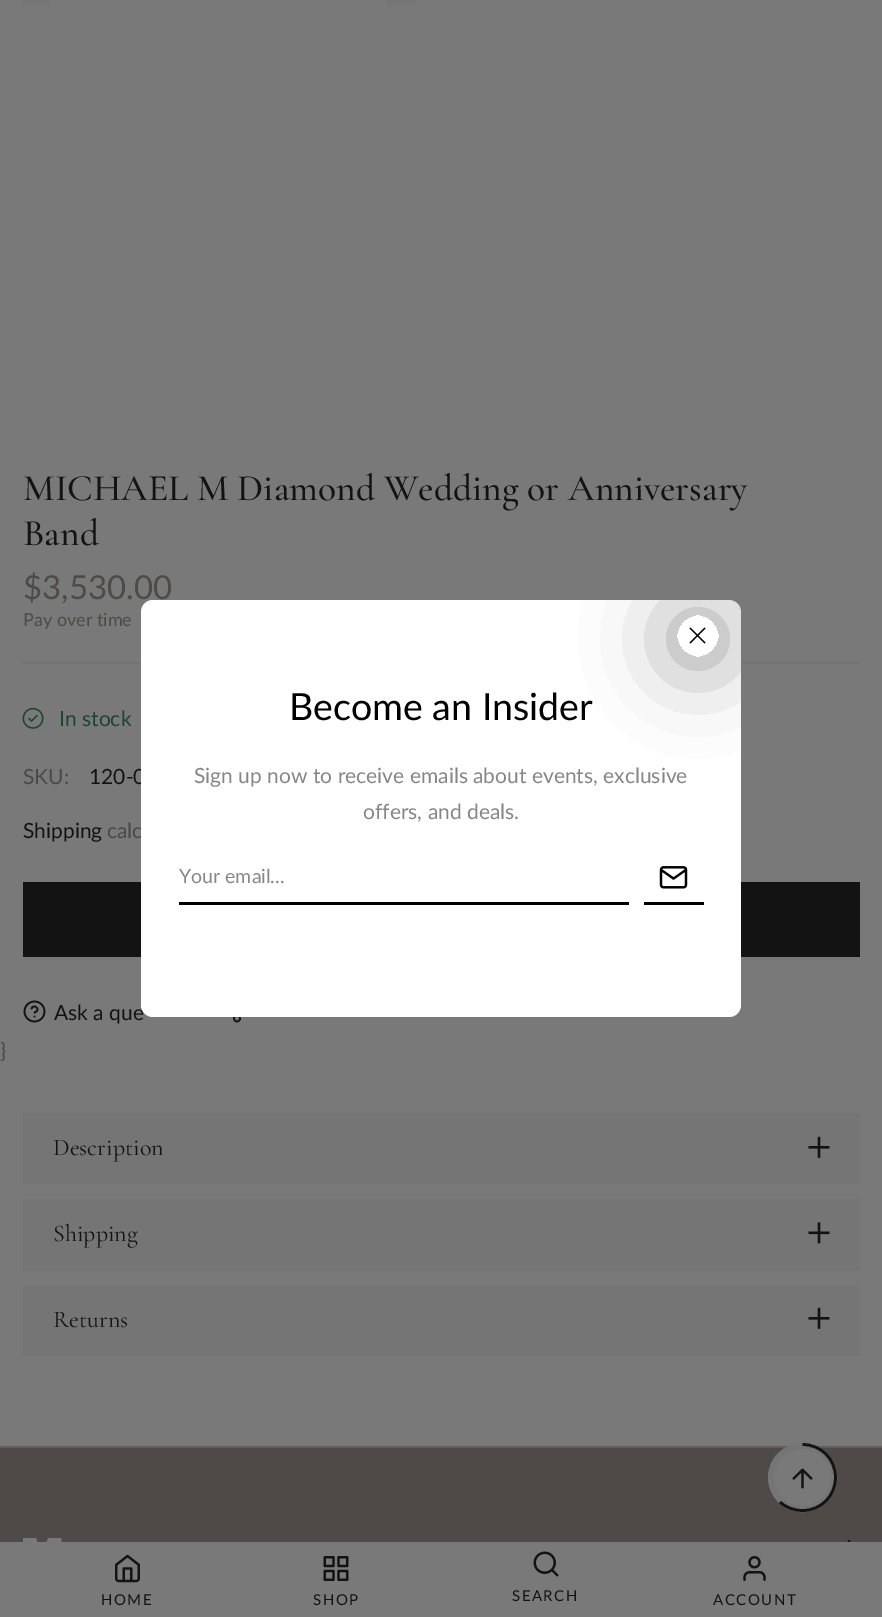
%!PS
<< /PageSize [882 1617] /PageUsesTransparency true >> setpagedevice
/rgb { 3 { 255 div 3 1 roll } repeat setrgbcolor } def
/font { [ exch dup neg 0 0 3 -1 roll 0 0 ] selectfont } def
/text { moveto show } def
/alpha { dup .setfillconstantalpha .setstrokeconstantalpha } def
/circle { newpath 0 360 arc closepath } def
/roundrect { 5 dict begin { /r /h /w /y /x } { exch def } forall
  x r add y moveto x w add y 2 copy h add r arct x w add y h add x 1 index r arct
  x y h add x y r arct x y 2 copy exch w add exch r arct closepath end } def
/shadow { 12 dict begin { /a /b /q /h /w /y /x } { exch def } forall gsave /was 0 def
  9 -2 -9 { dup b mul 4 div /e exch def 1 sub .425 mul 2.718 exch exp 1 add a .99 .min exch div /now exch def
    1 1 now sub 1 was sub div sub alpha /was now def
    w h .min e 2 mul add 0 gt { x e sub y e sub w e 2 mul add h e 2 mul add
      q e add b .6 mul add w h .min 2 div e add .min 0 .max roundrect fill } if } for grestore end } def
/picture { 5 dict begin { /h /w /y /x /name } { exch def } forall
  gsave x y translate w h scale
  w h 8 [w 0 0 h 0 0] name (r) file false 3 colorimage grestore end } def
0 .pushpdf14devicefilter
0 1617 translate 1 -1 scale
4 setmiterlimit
121 121 121 rgb
0 0 882 1617 rectfill
117 117 117 rgb
23 0 393 5 rectfill
121 121 121 rgb
51 0 336 5 rectfill
115 115 115 rgb
23 662 837 2 rectfill
(img_01.rgb) 22 707 22 22 picture
19 19 19 rgb
23 882 837 75 rectfill
(img_02.rgb) 23 1000 23 23 picture
(img_03.rgb) 232 1017 9 6 picture
117 117 117 rgb
23 1113 837 71 rectfill
(img_04.rgb) 808 1136 22 22 picture
23 1199 837 72 rectfill
(img_05.rgb) 808 1222 22 22 picture
23 1286 837 70 rectfill
(img_04.rgb) 808 1307 22 22 picture
79 74 72 rgb
0 1448 882 94 rectfill
99 93 90 rgb
0 1446 882 2 rectfill
121 121 121 rgb
802.5 1477.5 31.5 circle gsave fill grestore
117 117 117 rgb
6 setlinewidth
stroke
(img_07.rgb) 792 1468 21 21 picture
19 19 19 rgb
2.7 setlinewidth
802.5 1444.5 moveto 18.5 0 33 14.5 33 33 rcurveto 0 18.5 -14.5 33 -33 33 rcurveto -8.5 0 -16.5 -3 -22.5 -8.5 rcurveto stroke
(img_08.rgb) 23 1538 39 4 picture
(img_09.rgb) 847 1540 4 2 picture
(img_10.rgb) 115 1554 25 29 picture
(img_11.rgb) 323 1556 26 25 picture
(img_12.rgb) 533 1551 26 26 picture
(img_13.rgb) 743 1556 23 25 picture
/CormorantGaramond-Medium 37.5 font
(MICHAEL M Diamond Wedding or Anniversary) 23 500 text
(Band) 23 545 text
/Lato-Regular 33 font
79 74 72 rgb
($3,530.00) 23 599 text
/Lato-Regular 18 font
(Pay over time) 23 626 text
/Lato-Regular 21 font
26 70 46 rgb
(In stock) 59 726 text
73 73 73 rgb
(SKU:) 23 784 text
19 19 19 rgb
(120-0) 89 784 text
(Shipping) 23 838 text
73 73 73 rgb
(calc) 107 838 text
19 19 19 rgb
(Ask a que) 54 1020 text
73 73 73 rgb
(}) 0 1058 text
/CormorantGaramond-Regular 24 font
19 19 19 rgb
(Description) 53 1155 text
(Shipping) 53 1241 text
(Returns) 53 1327 text
255 255 255 rgb
141 600 600 417 12 roundrect fill
/Lato-Regular 37.5 font
0 0 0 rgb
(Become an Insider) 289 720 text
/Lato-Regular 21 font
134 134 134 rgb
(Sign up now to receive emails about events, exclusive) 194 783 text
(offers, and deals.) 363 819 text
0 0 0 rgb
179 902 450 3 rectfill
/Lato-Regular 19.5 font
134 134 134 rgb
(Your email...) 179 883 text
0 0 0 rgb
644 902 60 3 rectfill
(img_06.rgb) 659 866 29 23 picture
gsave
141 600 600 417 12 roundrect clip newpath
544 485 moveto 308 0 rlineto 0 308 rlineto -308 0 rlineto closepath 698 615 moveto 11.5 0 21 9.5 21 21 rcurveto 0 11.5 -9.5 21 -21 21 rcurveto -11.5 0 -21 -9.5 -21 -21 rcurveto 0 -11.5 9.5 -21 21 -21 rcurveto closepath eoclip newpath
677 618 42 42 21 44 0.4 shadow
grestore
689.5 642.5 moveto 15 -15 rlineto 1 1 rlineto -15 15 rlineto closepath fill
690.5 627.5 moveto 15 15 rlineto -1 1 rlineto -15 -15 rlineto closepath fill
/Lato-Regular 15 font
19 19 19 rgb
101 1605 moveto 1.5 0 (HOME) ashow
313 1605 moveto 1.5 0 (SHOP) ashow
512 1601 moveto 1.5 0 (SEARCH) ashow
713 1605 moveto 1.5 0 (ACCOUNT) ashow
.poppdf14devicefilter showpage
